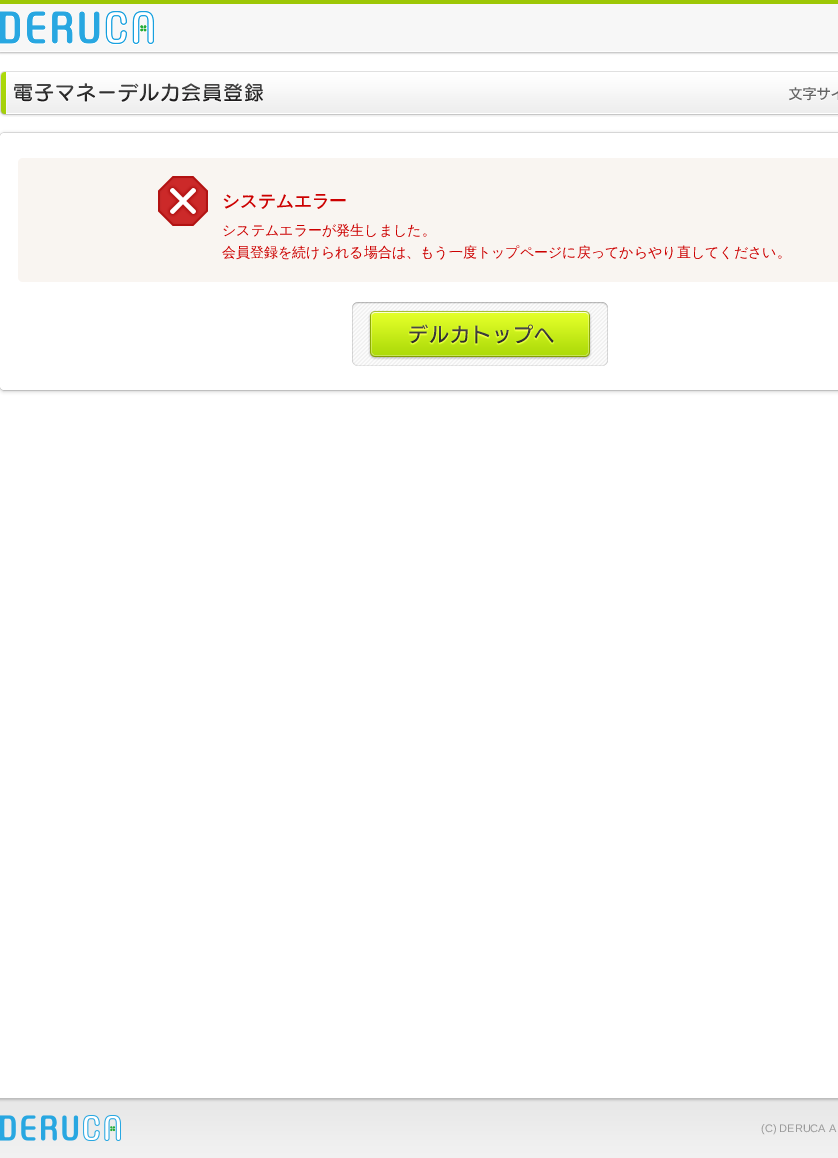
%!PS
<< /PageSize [838 1158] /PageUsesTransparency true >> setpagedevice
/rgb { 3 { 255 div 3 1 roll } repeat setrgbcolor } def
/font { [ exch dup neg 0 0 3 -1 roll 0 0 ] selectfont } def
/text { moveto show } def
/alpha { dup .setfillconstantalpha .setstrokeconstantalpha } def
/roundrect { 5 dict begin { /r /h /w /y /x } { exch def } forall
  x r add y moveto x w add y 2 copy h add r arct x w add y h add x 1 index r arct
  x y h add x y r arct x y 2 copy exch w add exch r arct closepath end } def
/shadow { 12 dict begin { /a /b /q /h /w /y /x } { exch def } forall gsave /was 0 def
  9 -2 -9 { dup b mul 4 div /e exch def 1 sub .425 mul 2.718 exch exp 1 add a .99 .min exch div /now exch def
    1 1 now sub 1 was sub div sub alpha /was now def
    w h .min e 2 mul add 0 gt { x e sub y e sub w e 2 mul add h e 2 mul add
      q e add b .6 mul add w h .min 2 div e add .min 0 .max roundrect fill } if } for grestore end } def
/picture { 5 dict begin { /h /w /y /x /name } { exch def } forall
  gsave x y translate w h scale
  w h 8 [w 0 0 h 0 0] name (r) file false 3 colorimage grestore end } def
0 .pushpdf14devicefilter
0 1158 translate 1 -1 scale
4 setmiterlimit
255 255 255 rgb
0 0 838 1158 rectfill
0 0 0 rgb
0 1 838 52 0 1 0.3 shadow
247 247 247 rgb
0 4 838 47 rectfill
253 253 253 rgb
0 51 838 1 rectfill
157 199 6 rgb
0 0 838 4 rectfill
(img_01.rgb) 0 11 154 34 picture
(img_02.rgb) 0 71 838 46 picture
(img_03.rgb) 14 83 249 20 picture
(img_04.rgb) 789 87 49 14 picture
0 0 0 rgb
0 134 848 257 4 2 0.25 shadow
0 133 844 257 4 0.5 0.4 shadow
255 255 255 rgb
0 133 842 257 4 roundrect fill
249 245 241 rgb
18 158 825 124 5 roundrect fill
(img_05.rgb) 158 176 50 50 picture
(img_06.rgb) 352 302 256 64 picture
(img_07.rgb) 368 310 224 50 picture
(img_08.rgb) 0 1098 838 60 picture
(img_09.rgb) 0 1115 121 26 picture
/WenQuanYiZenHei-Bold 17.5 font
204 0 0 rgb
(システムエラー) 222 207 text
/WenQuanYiZenHei-Medium 14 font
(システムエラーが発生しました。) 222 235 text
(会員登録を続けられる場合は、もう一度トップページに戻ってからやり直してください。) 222 257 text
/LiberationSans-Regular 11 font
153 153 153 rgb
(\(C\) DERUCA A) 761 1132 text
.poppdf14devicefilter showpage
